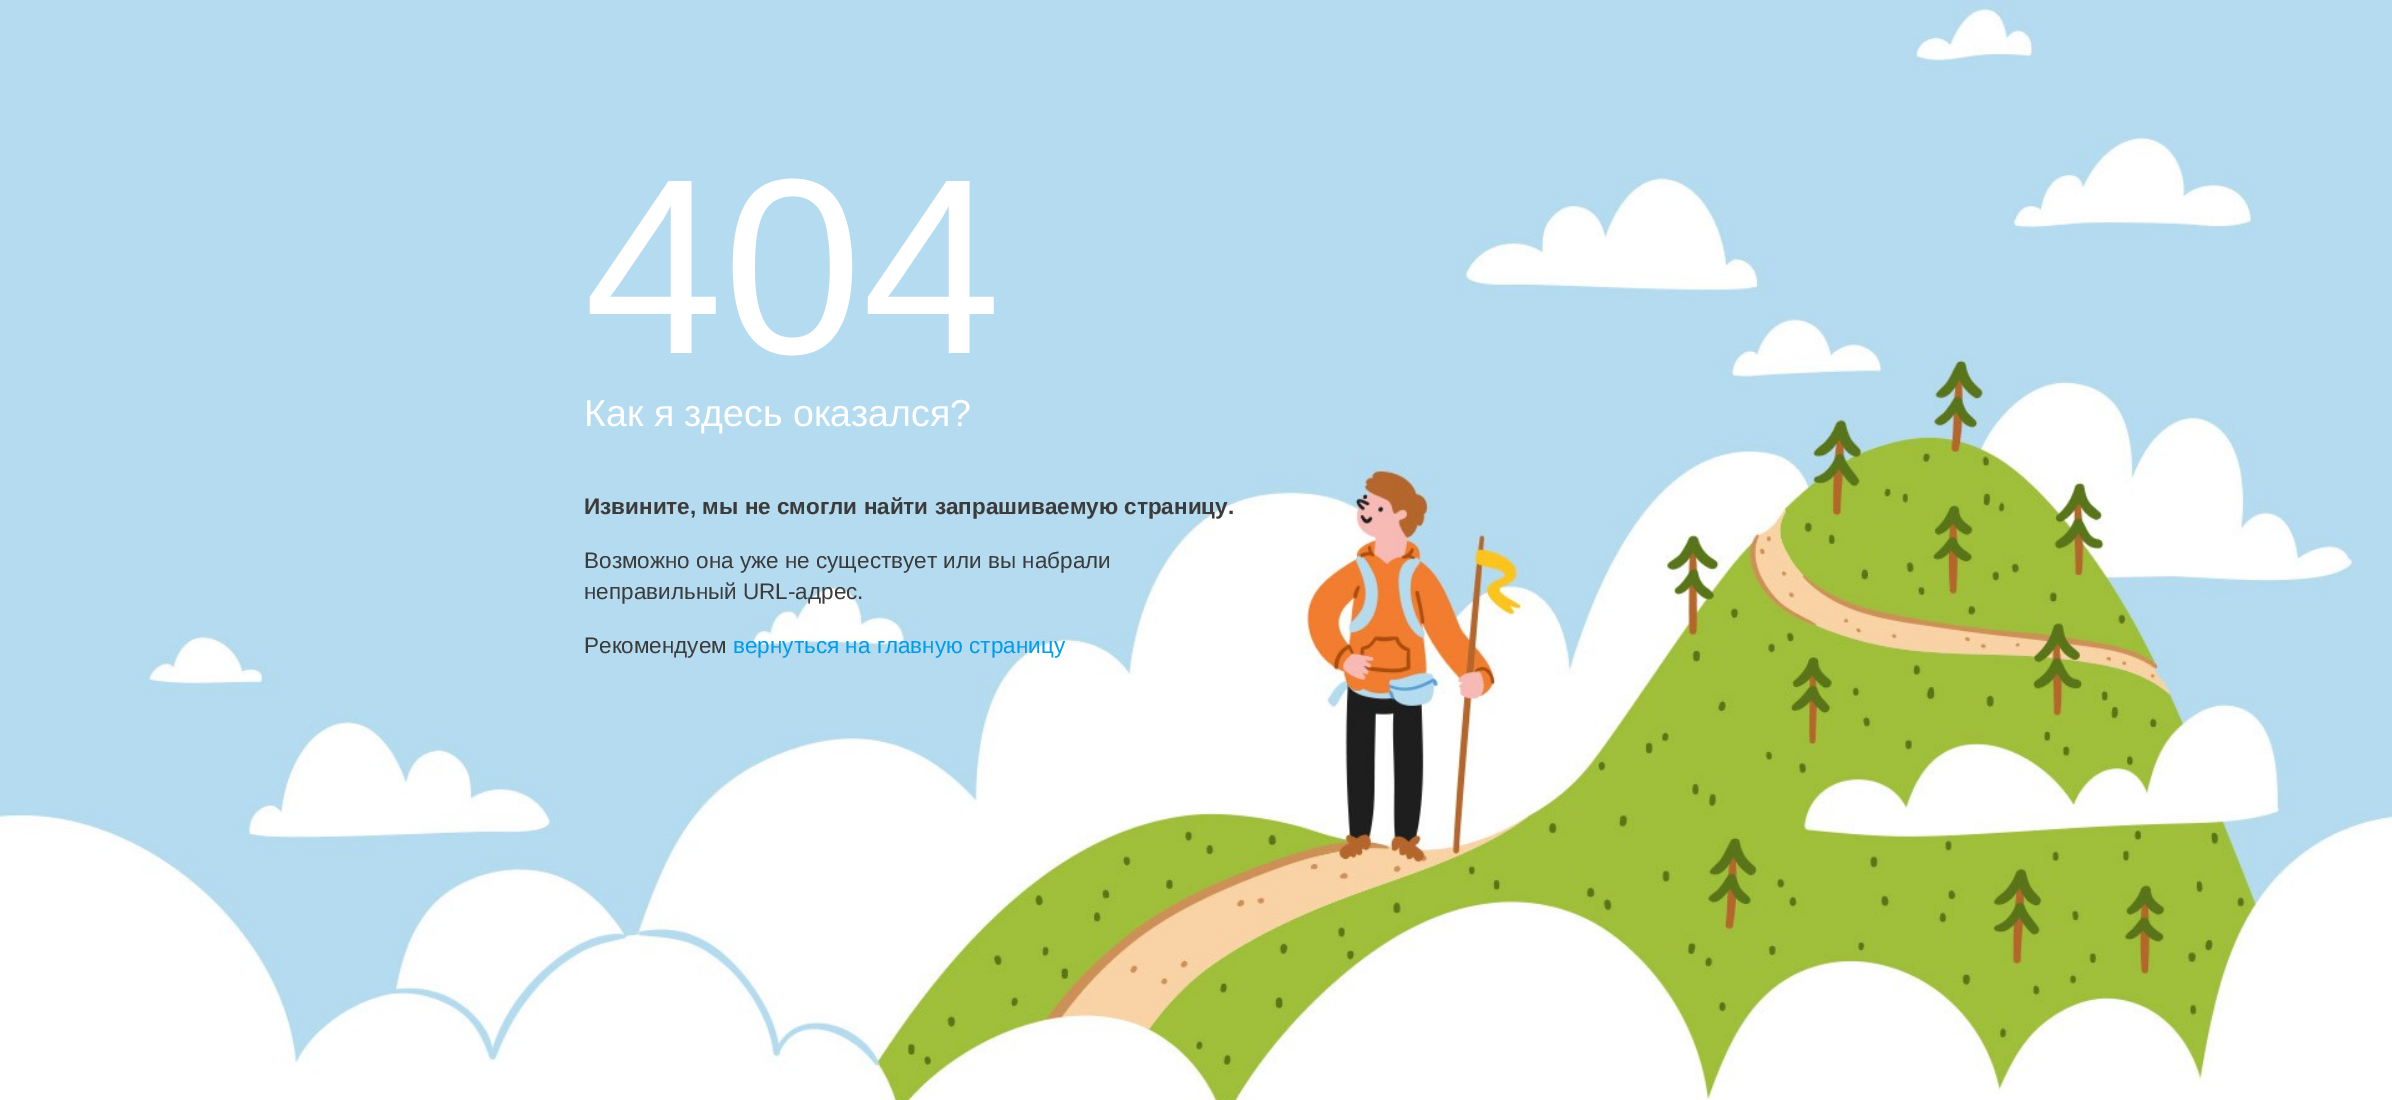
%!PS
<< /PageSize [2392 1100] >> setpagedevice
/rgb { 3 { 255 div 3 1 roll } repeat setrgbcolor } def
/font { [ exch dup neg 0 0 3 -1 roll 0 0 ] selectfont } def
/text { moveto show } def
/picture { 5 dict begin { /h /w /y /x /name } { exch def } forall
  gsave x y translate w h scale
  w h 8 [w 0 0 h 0 0] name (r) file false 3 colorimage grestore end } def
0 1100 translate 1 -1 scale
4 setmiterlimit
255 255 255 rgb
0 0 2392 1100 rectfill
(img_01.rgb) 0 0 2392 1100 picture
/LiberationSans-Regular 250 font
(404) 584 353 text
/LiberationSans-Regular 37.5 font
(Как я здесь оказался?) 584 426 text
/LiberationSans-Bold 22.5 font
59 59 59 rgb
(Извините, мы не смогли найти запрашиваемую страницу.) 584 514 text
/LiberationSans-Regular 22.5 font
(Возможно она уже не существует или вы набрали) 584 568 text
(неправильный URL-адрес.) 584 599 text
(Рекомендуем) 584 653 text
3 155 229 rgb
(вернуться на главную страницу) 733 653 text
showpage
